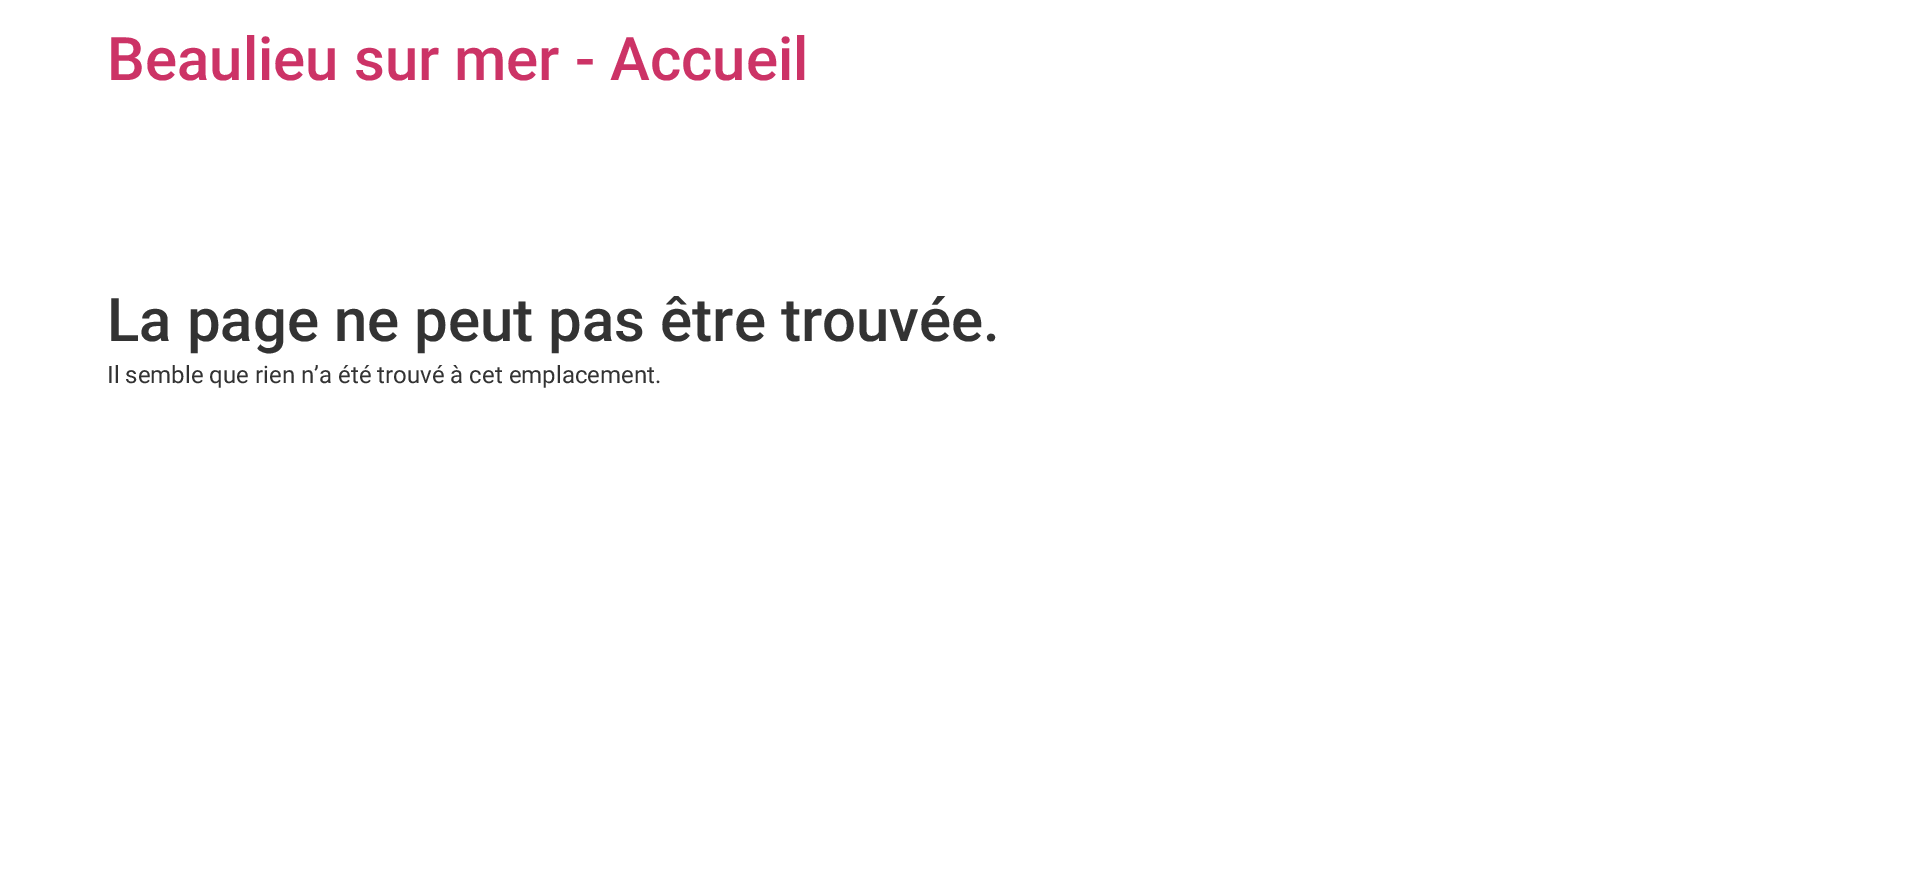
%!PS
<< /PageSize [1922 876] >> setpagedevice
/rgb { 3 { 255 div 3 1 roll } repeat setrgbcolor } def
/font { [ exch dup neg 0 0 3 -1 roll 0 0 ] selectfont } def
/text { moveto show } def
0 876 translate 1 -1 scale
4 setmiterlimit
255 255 255 rgb
0 0 1922 876 rectfill
/Roboto-Medium 60 font
204 51 102 rgb
(Beaulieu sur mer - Accueil) 107 80 text
51 51 51 rgb
(La page ne peut pas être trouvée.) 107 341 text
/Roboto-Regular 24 font
(Il semble que rien n’a été trouvé à cet emplacement.) 107 383 text
showpage
